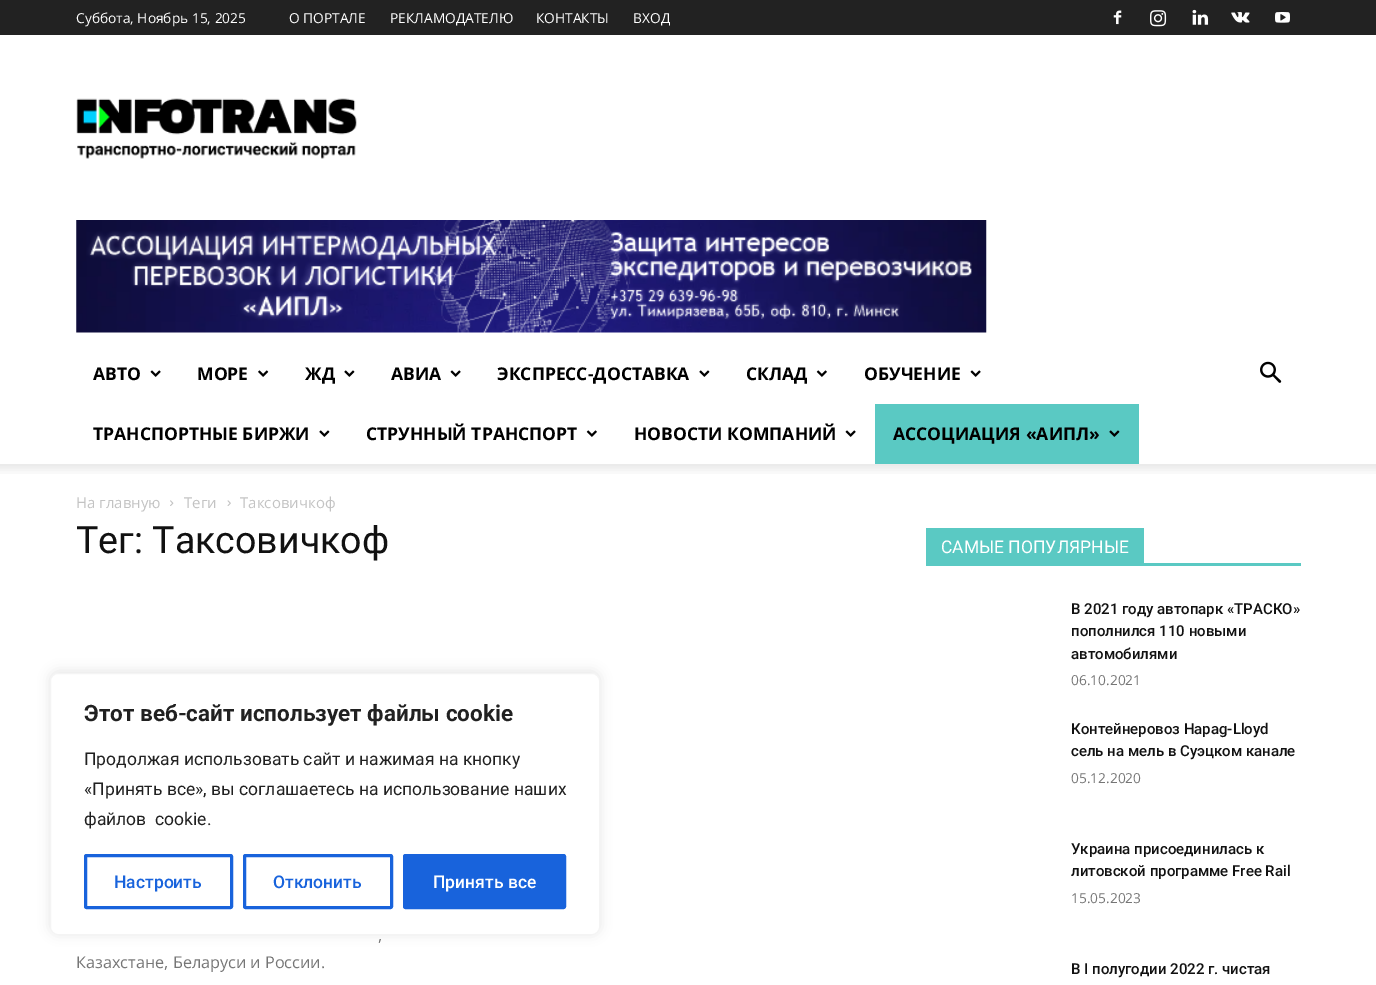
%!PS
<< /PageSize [1376 985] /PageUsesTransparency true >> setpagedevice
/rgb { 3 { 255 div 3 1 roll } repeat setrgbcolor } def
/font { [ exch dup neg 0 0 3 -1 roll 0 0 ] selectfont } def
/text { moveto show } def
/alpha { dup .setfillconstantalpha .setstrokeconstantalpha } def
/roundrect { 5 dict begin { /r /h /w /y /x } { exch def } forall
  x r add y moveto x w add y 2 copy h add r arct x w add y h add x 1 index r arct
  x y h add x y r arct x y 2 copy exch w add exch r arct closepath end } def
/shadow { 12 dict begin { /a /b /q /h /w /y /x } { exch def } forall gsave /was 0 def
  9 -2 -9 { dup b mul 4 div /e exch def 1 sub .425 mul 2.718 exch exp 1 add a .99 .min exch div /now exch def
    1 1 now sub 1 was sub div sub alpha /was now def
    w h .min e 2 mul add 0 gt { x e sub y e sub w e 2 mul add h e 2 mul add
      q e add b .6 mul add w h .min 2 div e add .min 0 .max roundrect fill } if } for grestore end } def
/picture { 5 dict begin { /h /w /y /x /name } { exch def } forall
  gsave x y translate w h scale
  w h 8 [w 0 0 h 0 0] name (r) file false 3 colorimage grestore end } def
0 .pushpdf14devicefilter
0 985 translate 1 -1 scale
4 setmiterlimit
255 255 255 rgb
0 0 1376 985 rectfill
34 34 34 rgb
0 0 1376 35 rectfill
(img_01.rgb) 1113 10 9 15 picture
(img_02.rgb) 1150 10 17 17 picture
(img_03.rgb) 1192 9 17 16 picture
(img_04.rgb) 1231 12 19 11 picture
(img_05.rgb) 1275 12 15 11 picture
(img_06.rgb) 76 98 281 61 picture
(img_07.rgb) 76 220 911 113 picture
(img_08.rgb) 150 370 11 7 picture
(img_09.rgb) 258 370 11 7 picture
(img_10.rgb) 344 370 11 7 picture
(img_08.rgb) 450 370 11 7 picture
(img_10.rgb) 699 370 11 7 picture
(img_11.rgb) 816 370 11 7 picture
(img_08.rgb) 970 370 11 7 picture
(img_10.rgb) 319 430 11 7 picture
(img_11.rgb) 586 430 11 7 picture
(img_08.rgb) 845 430 11 7 picture
90 201 195 rgb
875 404 264 60 rectfill
(img_12.rgb) 1109 430 11 7 picture
(img_13.rgb) 1260 361 22 22 picture
(img_14.rgb) 0 464 1376 10 picture
(img_15.rgb) 170 500 4 6 picture
(img_16.rgb) 227 500 4 6 picture
926 563 375 3 rectfill
926 528 218 35 rectfill
172 171 171 rgb
50 671 550 263 8 6 0.3 shadow
255 255 255 rgb
50.5 673.5 549 261 7.5 roundrect gsave fill grestore
244 244 244 rgb
stroke
24 99 220 rgb
3 setlinewidth
85.5 855.5 146 52 1 roundrect stroke
244.5 855.5 147 52 1 roundrect stroke
404.5 855.5 160 52 1 roundrect gsave fill grestore
stroke
/OpenSans-Regular 13.75 font
255 255 255 rgb
(Суббота, Ноябрь 15, 2025) 76 23 text
(О ПОРТАЛЕ) 289 23 text
(РЕКЛАМОДАТЕЛЮ) 390 23 text
(КОНТАКТЫ) 536 23 text
(ВХОД) 633 23 text
/OpenSans-Bold 17.5 font
0 0 0 rgb
(АВТО) 93 380 text
(МОРЕ) 197 380 text
(ЖД) 305 380 text
(АВИА) 391 380 text
(ЭКСПРЕСС-ДОСТАВКА) 497 380 text
(СКЛАД) 746 380 text
(ОБУЧЕНИЕ) 864 380 text
(ТРАНСПОРТНЫЕ БИРЖИ) 93 440 text
(СТРУННЫЙ ТРАНСПОРТ) 366 440 text
(НОВОСТИ КОМПАНИЙ) 634 440 text
(АССОЦИАЦИЯ «АИПЛ») 893 440 text
/OpenSans-Regular 15 font
195 195 195 rgb
(На главную) 76 508 text
(Теги) 184 508 text
(Таксовичкоф) 240 508 text
/Roboto-Regular 37.5 font
17 17 17 rgb
(Тег: Таксовичкоф) 76 553 text
/OpenSans-Regular 16.25 font
118 118 118 rgb
(,) 378 941 text
(Казахстане, Беларуси и России.) 76 968 text
/Roboto-Regular 17.5 font
255 255 255 rgb
(САМЫЕ ПОПУЛЯРНЫЕ) 941 553 text
/Roboto-Medium 15 font
17 17 17 rgb
(В 2021 году автопарк «ТРАСКО») 1071 614 text
(пополнился 110 новыми) 1071 636 text
(автомобилями) 1071 659 text
/OpenSans-Regular 13.75 font
118 118 118 rgb
(06.10.2021) 1071 685 text
/Roboto-Medium 15 font
17 17 17 rgb
(Контейнеровоз Hapag-Lloyd) 1071 734 text
(сель на мель в Суэцком канале) 1071 756 text
/OpenSans-Regular 13.75 font
118 118 118 rgb
(05.12.2020) 1071 783 text
/Roboto-Medium 15 font
17 17 17 rgb
(Украина присоединилась к) 1071 854 text
(литовской программе Free Rail) 1071 876 text
/OpenSans-Regular 13.75 font
118 118 118 rgb
(15.05.2023) 1071 903 text
/Roboto-Medium 15 font
17 17 17 rgb
(В I полугодии 2022 г. чистая) 1071 974 text
/Roboto-Bold 22.5 font
33 33 33 rgb
(Этот веб-сайт использует файлы cookie) 84 721 text
/Roboto-Regular 17.5 font
(Продолжая использовать сайт и нажимая на кнопку) 84 765 text
(«Принять все», вы соглашаетесь на использование наших) 84 795 text
(файлов  cookie.) 84 825 text
/Roboto-Medium 17.5 font
24 99 220 rgb
(Настроить) 114 888 text
(Отклонить) 273 888 text
255 255 255 rgb
(Принять все) 433 888 text
.poppdf14devicefilter showpage
